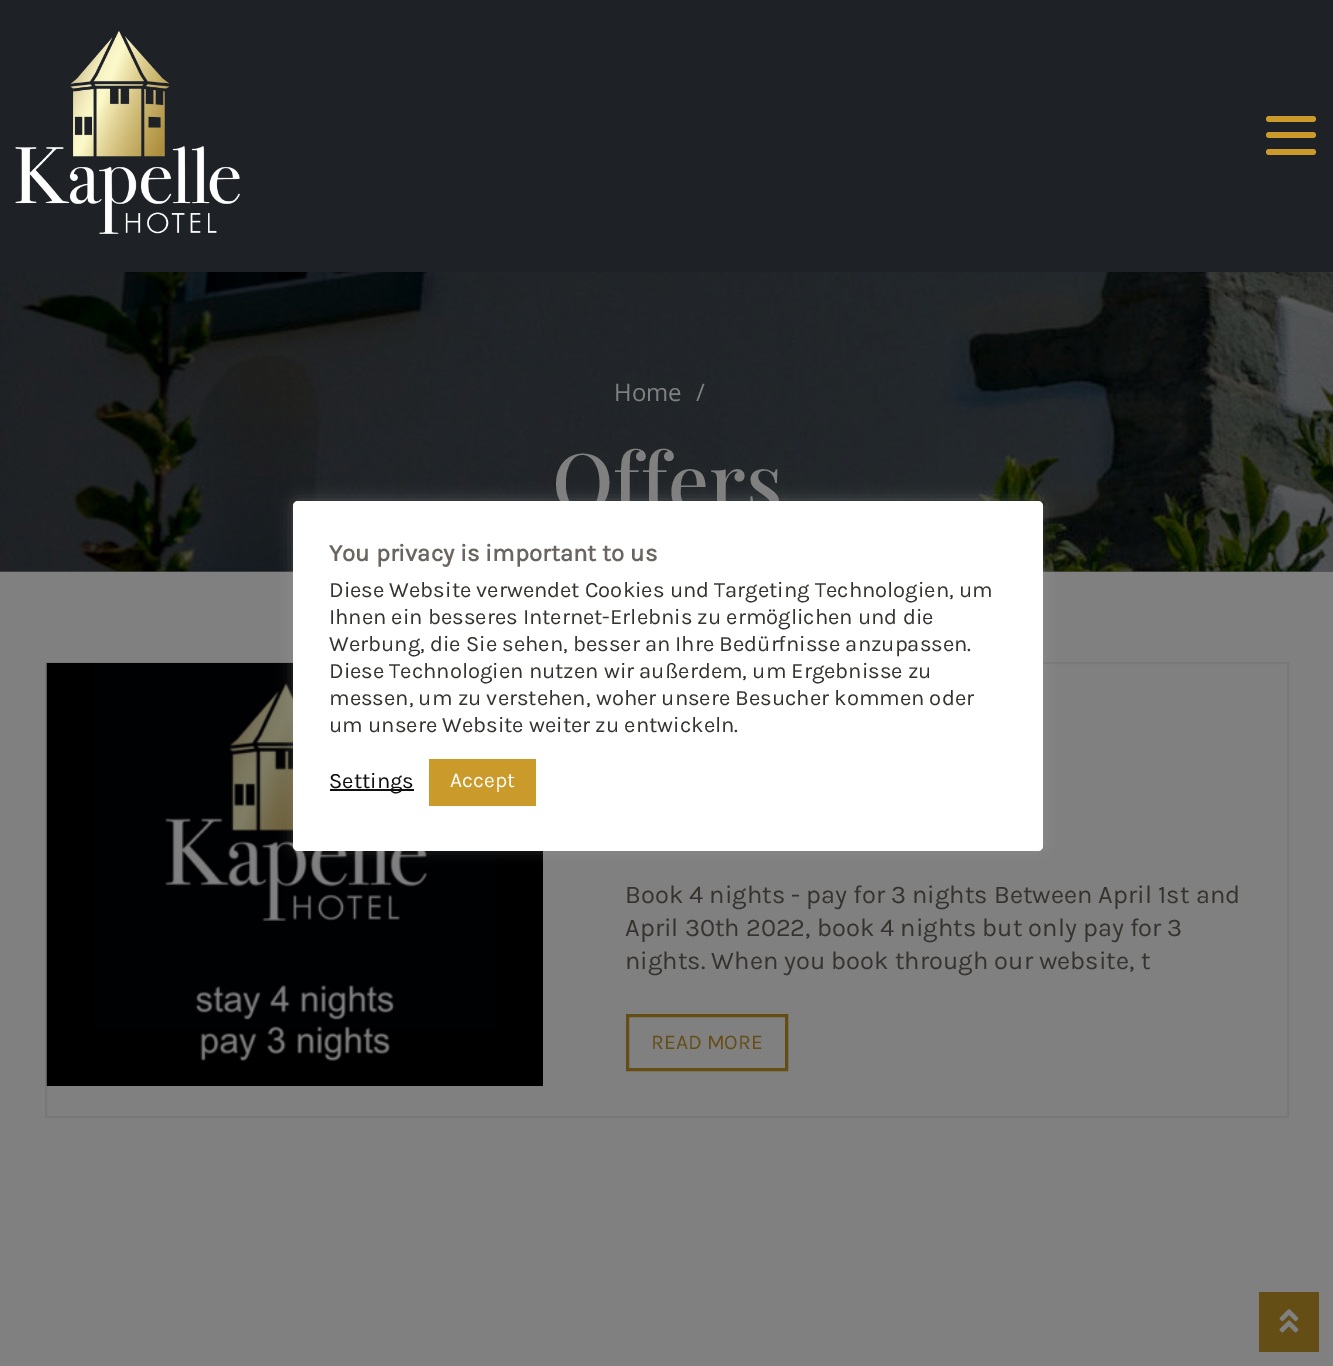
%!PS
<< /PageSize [1333 1366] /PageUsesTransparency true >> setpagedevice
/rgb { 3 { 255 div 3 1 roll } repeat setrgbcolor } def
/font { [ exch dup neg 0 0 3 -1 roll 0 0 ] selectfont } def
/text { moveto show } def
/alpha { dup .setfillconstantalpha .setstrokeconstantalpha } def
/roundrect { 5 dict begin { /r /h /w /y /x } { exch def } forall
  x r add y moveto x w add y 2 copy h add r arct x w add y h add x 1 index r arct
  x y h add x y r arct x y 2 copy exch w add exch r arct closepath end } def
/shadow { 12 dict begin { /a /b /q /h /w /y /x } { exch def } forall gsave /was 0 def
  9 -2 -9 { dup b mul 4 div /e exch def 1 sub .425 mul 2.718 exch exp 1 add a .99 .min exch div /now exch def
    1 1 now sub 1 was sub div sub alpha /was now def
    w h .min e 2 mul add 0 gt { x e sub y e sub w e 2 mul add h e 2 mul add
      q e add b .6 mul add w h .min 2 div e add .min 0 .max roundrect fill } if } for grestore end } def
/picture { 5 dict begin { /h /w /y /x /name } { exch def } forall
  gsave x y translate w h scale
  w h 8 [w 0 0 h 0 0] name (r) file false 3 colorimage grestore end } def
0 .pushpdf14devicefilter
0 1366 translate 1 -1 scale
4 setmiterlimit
128 128 128 rgb
0 0 1333 1366 rectfill
90 90 90 rgb
0 571 1333 1 rectfill
30 33 38 rgb
0 0 1333 272 rectfill
(img_01.rgb) 15 30 225 204 picture
202 154 43 rgb
1266 116 50 6 3 roundrect fill
1266 132 50 6 3 roundrect fill
1266 149 50 6 3 roundrect fill
(img_02.rgb) 0 272 1333 300 picture
120 120 120 rgb
2 setlinewidth
46 663 1242 454 rectstroke
(img_03.rgb) 46 663 497 423 picture
101 77 22 rgb
3 setlinewidth
627.5 1015.5 159 54 rectstroke
172 171 171 rgb
293 500 750 349 5 7.5 0.3 shadow
101 77 22 rgb
1259 1292 60 60 rectfill
(img_04.rgb) 1279 1309 20 24 picture
/OpenSans-Regular 24 font
128 128 128 rgb
(Home) 614 401 text
(/) 696 401 text
/PlayfairDisplay-Medium 81 font
(Offers) 552 512 text
/Karla-Regular 25.5 font
53 51 48 rgb
(Book 4 nights - pay for 3 nights Between April 1st and) 625 903 text
(April 30th 2022, book 4 nights but only pay for 3) 625 936 text
(nights. When you book through our website, t) 625 969 text
/Karla-Regular 21 font
101 77 22 rgb
(READ MORE) 651 1049 text
255 255 255 rgb
293 501 750 350 5 roundrect fill
/Karla-Bold 24 font
106 101 96 rgb
(You privacy is important to us) 329 561 text
/Karla-Regular 22 font
53 51 48 rgb
(Diese Website verwendet Cookies und Targeting Technologien, um) 329 597 text
(Ihnen ein besseres Internet-Erlebnis zu ermöglichen und die) 329 624 text
(Werbung, die Sie sehen, besser an Ihre Bedürfnisse anzupassen.) 329 651 text
(Diese Technologien nutzen wir außerdem, um Ergebnisse zu) 329 678 text
(messen, um zu verstehen, woher unsere Besucher kommen oder) 329 705 text
(um unsere Website weiter zu entwickeln.) 329 732 text
15 15 15 rgb
330 789 84 2 rectfill
(Settings) 329 788 text
202 154 43 rgb
429 759 107 47 rectfill
/Karla-Regular 21 font
255 255 255 rgb
(Accept) 450 787 text
.poppdf14devicefilter showpage
